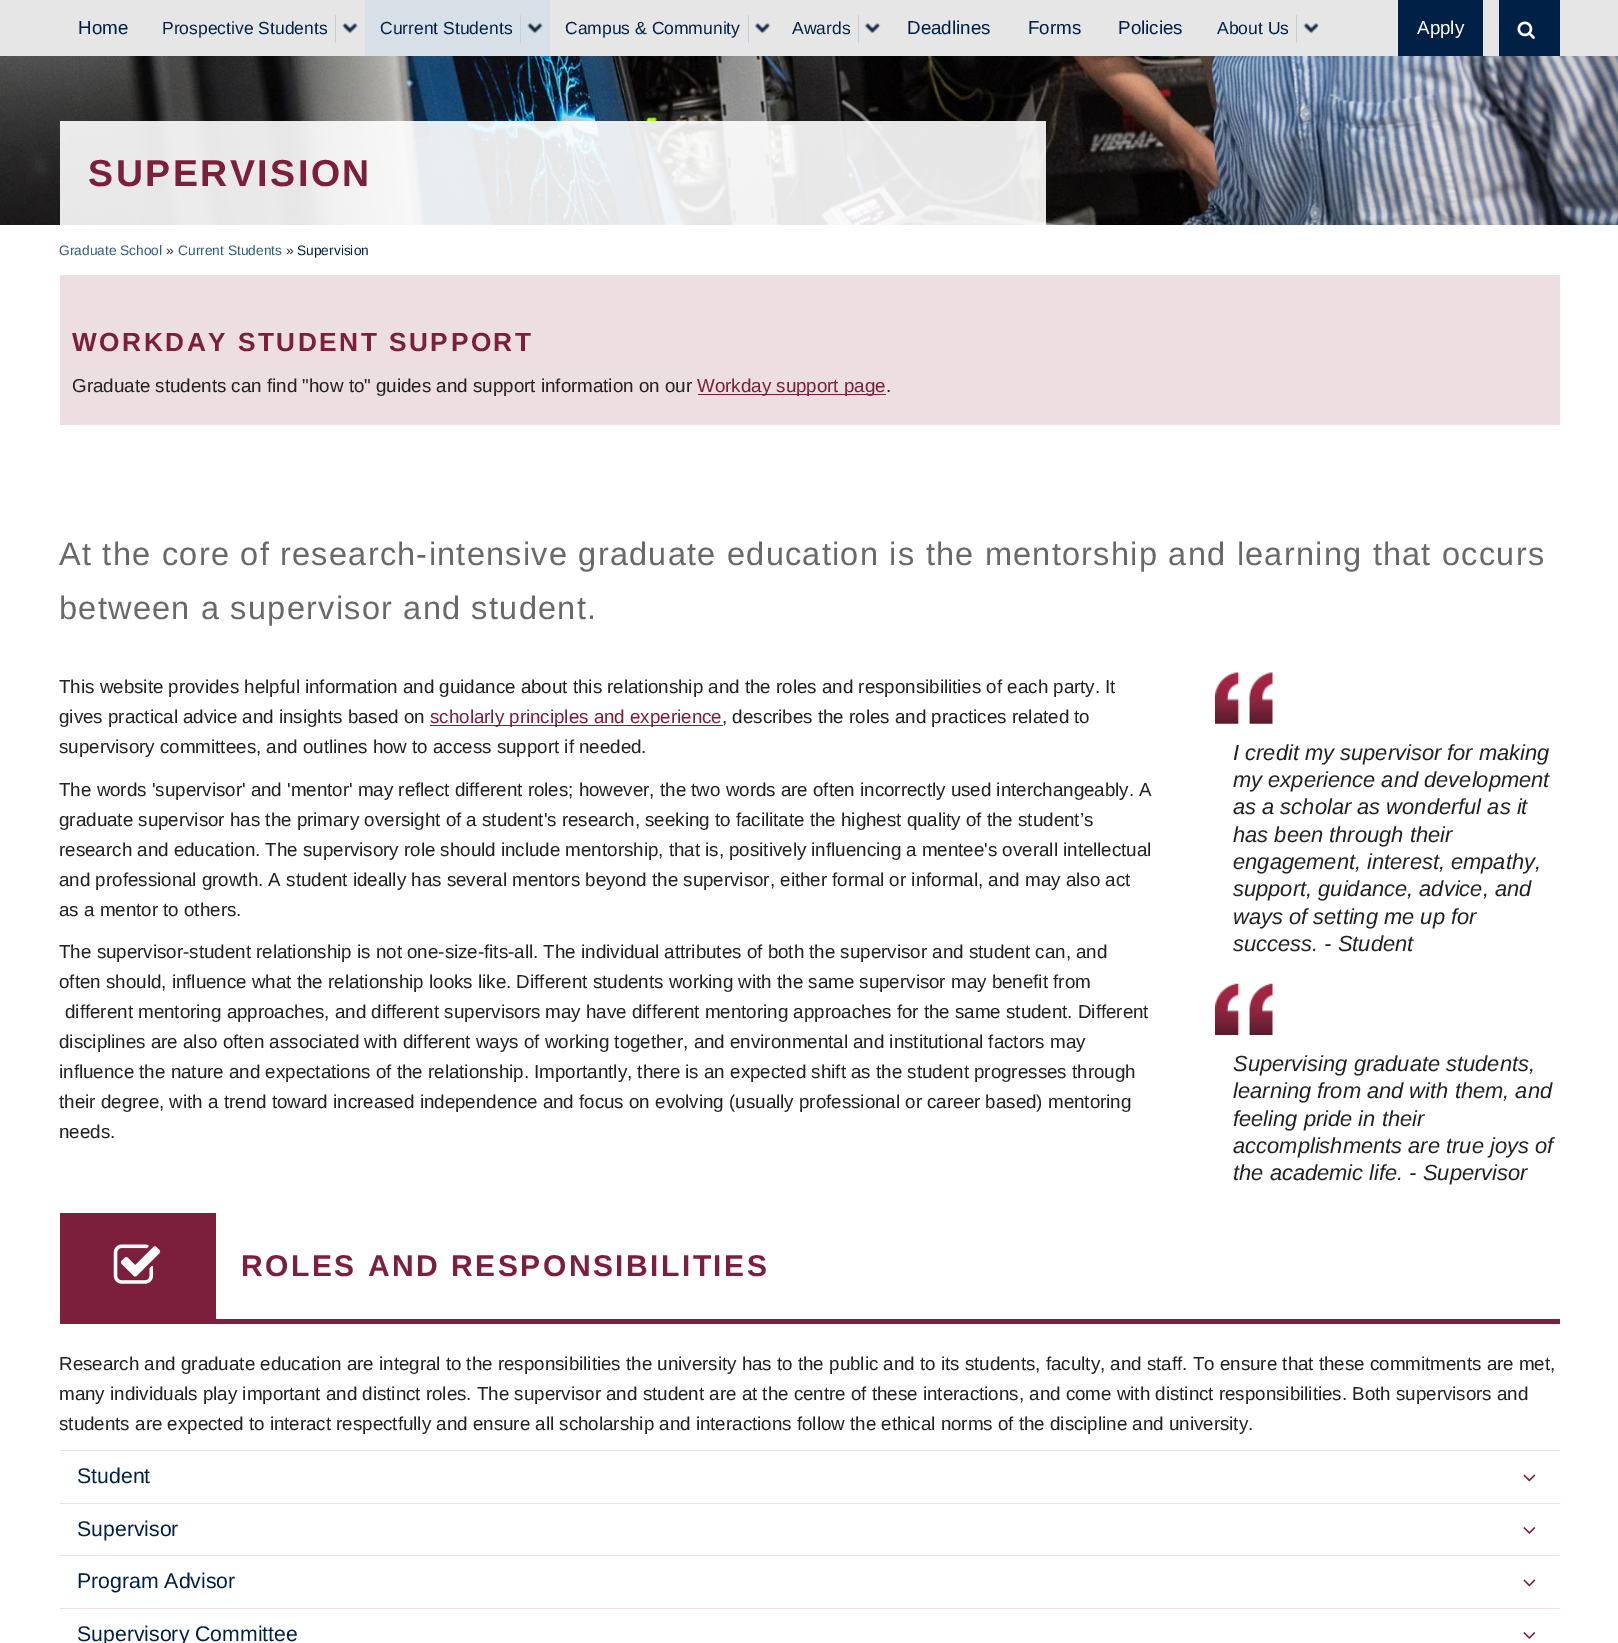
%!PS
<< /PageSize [1618 1643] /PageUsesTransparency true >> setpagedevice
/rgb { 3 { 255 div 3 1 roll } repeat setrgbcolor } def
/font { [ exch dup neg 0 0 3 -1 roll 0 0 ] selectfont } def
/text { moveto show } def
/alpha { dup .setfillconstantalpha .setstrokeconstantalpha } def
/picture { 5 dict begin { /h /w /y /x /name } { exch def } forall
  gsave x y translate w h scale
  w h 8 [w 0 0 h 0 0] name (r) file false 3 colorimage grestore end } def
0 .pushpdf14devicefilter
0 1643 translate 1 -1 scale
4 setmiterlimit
255 255 255 rgb
0 0 1618 1643 rectfill
230 230 230 rgb
0 0 1618 56 rectfill
195 208 219 rgb
335 15 1 28 rectfill
(img_01.rgb) 342 23 16 11 picture
215 224 231 rgb
365 0 185 56 rectfill
195 208 219 rgb
520 15 1 28 rectfill
(img_02.rgb) 527 23 16 11 picture
748 15 1 28 rectfill
(img_03.rgb) 754 23 17 11 picture
858 15 1 28 rectfill
(img_03.rgb) 864 23 17 11 picture
1296 15 1 28 rectfill
(img_04.rgb) 1303 23 16 11 picture
0 33 69 rgb
1398 0 85 56 rectfill
1499 0 61 56 rectfill
(img_05.rgb) 1517 21 18 18 picture
(img_06.rgb) 0 56 1618 169 picture
0.9 alpha
255 255 255 rgb
60 121 986 104 rectfill
1 alpha
236 222 225 rgb
60 275 1500 150 rectfill
124 31 61 rgb
698 394 188 1 rectfill
430 725 293 1 rectfill
(img_07.rgb) 1215 672 58 52 picture
(img_08.rgb) 1215 983 58 52 picture
60 1319 1500 5 rectfill
60 1213 156 106 rectfill
(img_09.rgb) 113 1244 48 40 picture
236 222 225 rgb
60 1450 1500 1 rectfill
(img_10.rgb) 1523 1474 13 8 picture
60 1503 1500 1 rectfill
(img_11.rgb) 1523 1527 13 7 picture
60 1555 1500 1 rectfill
(img_10.rgb) 1523 1579 13 8 picture
60 1608 1500 1 rectfill
(img_11.rgb) 1523 1632 13 7 picture
/LiberationSans-Regular 18.75 font
0 33 69 rgb
(Home) 78 34 text
/LiberationSans-Regular 17.5 font
(Prospective Students) 162 34 text
(Current Students) 380 34 text
(Campus & Community) 565 34 text
(Awards) 792 34 text
/LiberationSans-Regular 18.75 font
(Deadlines) 907 34 text
(Forms) 1028 34 text
(Policies) 1118 34 text
/LiberationSans-Regular 17.5 font
(About Us) 1217 34 text
/LiberationSans-Regular 18.75 font
255 255 255 rgb
(Apply) 1417 34 text
/LiberationSans-Bold 37.5 font
124 31 61 rgb
88 186 moveto 2.5 0 (SUPERVISION) ashow
/LiberationSans-Regular 13.75 font
47 93 124 rgb
(Graduate School) 59 255 text
34 34 34 rgb
(») 166 255 text
47 93 124 rgb
(Current Students) 178 255 text
34 34 34 rgb
(») 286 255 text
0 33 69 rgb
(Supervision) 297 255 text
/LiberationSans-Bold 26.25 font
124 31 61 rgb
72 351 moveto 2.5 0 (WORKDAY STUDENT SUPPORT) ashow
/LiberationSans-Regular 18.75 font
34 34 34 rgb
(Graduate students can find "how to" guides and support information on our) 72 392 text
124 31 61 rgb
(Workday support page) 697 392 text
34 34 34 rgb
(.) 886 392 text
/LiberationSans-Regular 32.5 font
105 105 105 rgb
59 565 moveto 1.25 0 (At the core of research-intensive graduate education is the mentorship and learning that occurs) ashow
59 619 moveto 1.25 0 (between a supervisor and student.) ashow
/LiberationSans-Regular 18.75 font
34 34 34 rgb
(This website provides helpful information and guidance about this relationship and the roles and responsibilities of each party. It) 59 693 text
(gives practical advice and insights based on) 59 723 text
124 31 61 rgb
(scholarly principles and experience) 430 723 text
34 34 34 rgb
(, describes the roles and practices related to) 722 723 text
(supervisory committees, and outlines how to access support if needed.) 59 753 text
(The words 'supervisor' and 'mentor' may reflect different roles; however, the two words are often incorrectly used interchangeably. A) 59 796 text
(graduate supervisor has the primary oversight of a student's research, seeking to facilitate the highest quality of the student’s) 59 826 text
(research and education. The supervisory role should include mentorship, that is, positively influencing a mentee's overall intellectual) 59 856 text
(and professional growth. A student ideally has several mentors beyond the supervisor, either formal or informal, and may also act) 59 886 text
(as a mentor to others.) 59 916 text
(The supervisor-student relationship is not one-size-fits-all. The individual attributes of both the supervisor and student can, and) 59 958 text
(often should, influence what the relationship looks like. Different students working with the same supervisor may benefit from) 59 988 text
(different mentoring approaches, and different supervisors may have different mentoring approaches for the same student. Different) 65 1018 text
(disciplines are also often associated with different ways of working together, and environmental and institutional factors may) 59 1048 text
(influence the nature and expectations of the relationship. Importantly, there is an expected shift as the student progresses through) 59 1078 text
(their degree, with a trend toward increased independence and focus on evolving \(usually professional or career based\) mentoring) 59 1108 text
(needs.) 59 1138 text
/LiberationSans-Italic 21.9 font
(I credit my supervisor for making) 1233 760 text
(my experience and development) 1233 787 text
(as a scholar as wonderful as it) 1233 814 text
(has been through their) 1233 842 text
(engagement, interest, empathy,) 1233 869 text
(support, guidance, advice, and) 1233 896 text
(ways of setting me up for) 1233 924 text
(success. - Student) 1233 951 text
(Supervising graduate students,) 1233 1071 text
(learning from and with them, and) 1233 1098 text
(feeling pride in their) 1233 1126 text
(accomplishments are true joys of) 1233 1153 text
(the academic life. - Supervisor) 1233 1180 text
/LiberationSans-Bold 30 font
124 31 61 rgb
241 1276 moveto 2.5 0 (ROLES AND RESPONSIBILITIES) ashow
/LiberationSans-Regular 18.75 font
34 34 34 rgb
(Research and graduate education are integral to the responsibilities the university has to the public and to its students, faculty, and staff. To ensure that these commitments are met,) 59 1370 text
(many individuals play important and distinct roles. The supervisor and student are at the centre of these interactions, and come with distinct responsibilities. Both supervisors and) 59 1400 text
(students are expected to interact respectfully and ensure all scholarship and interactions follow the ethical norms of the discipline and university.) 59 1430 text
/LiberationSans-Regular 21.25 font
0 33 69 rgb
(Student) 77 1483 text
(Supervisor) 77 1536 text
(Program Advisor) 77 1588 text
(Supervisory Committee) 77 1641 text
.poppdf14devicefilter showpage
